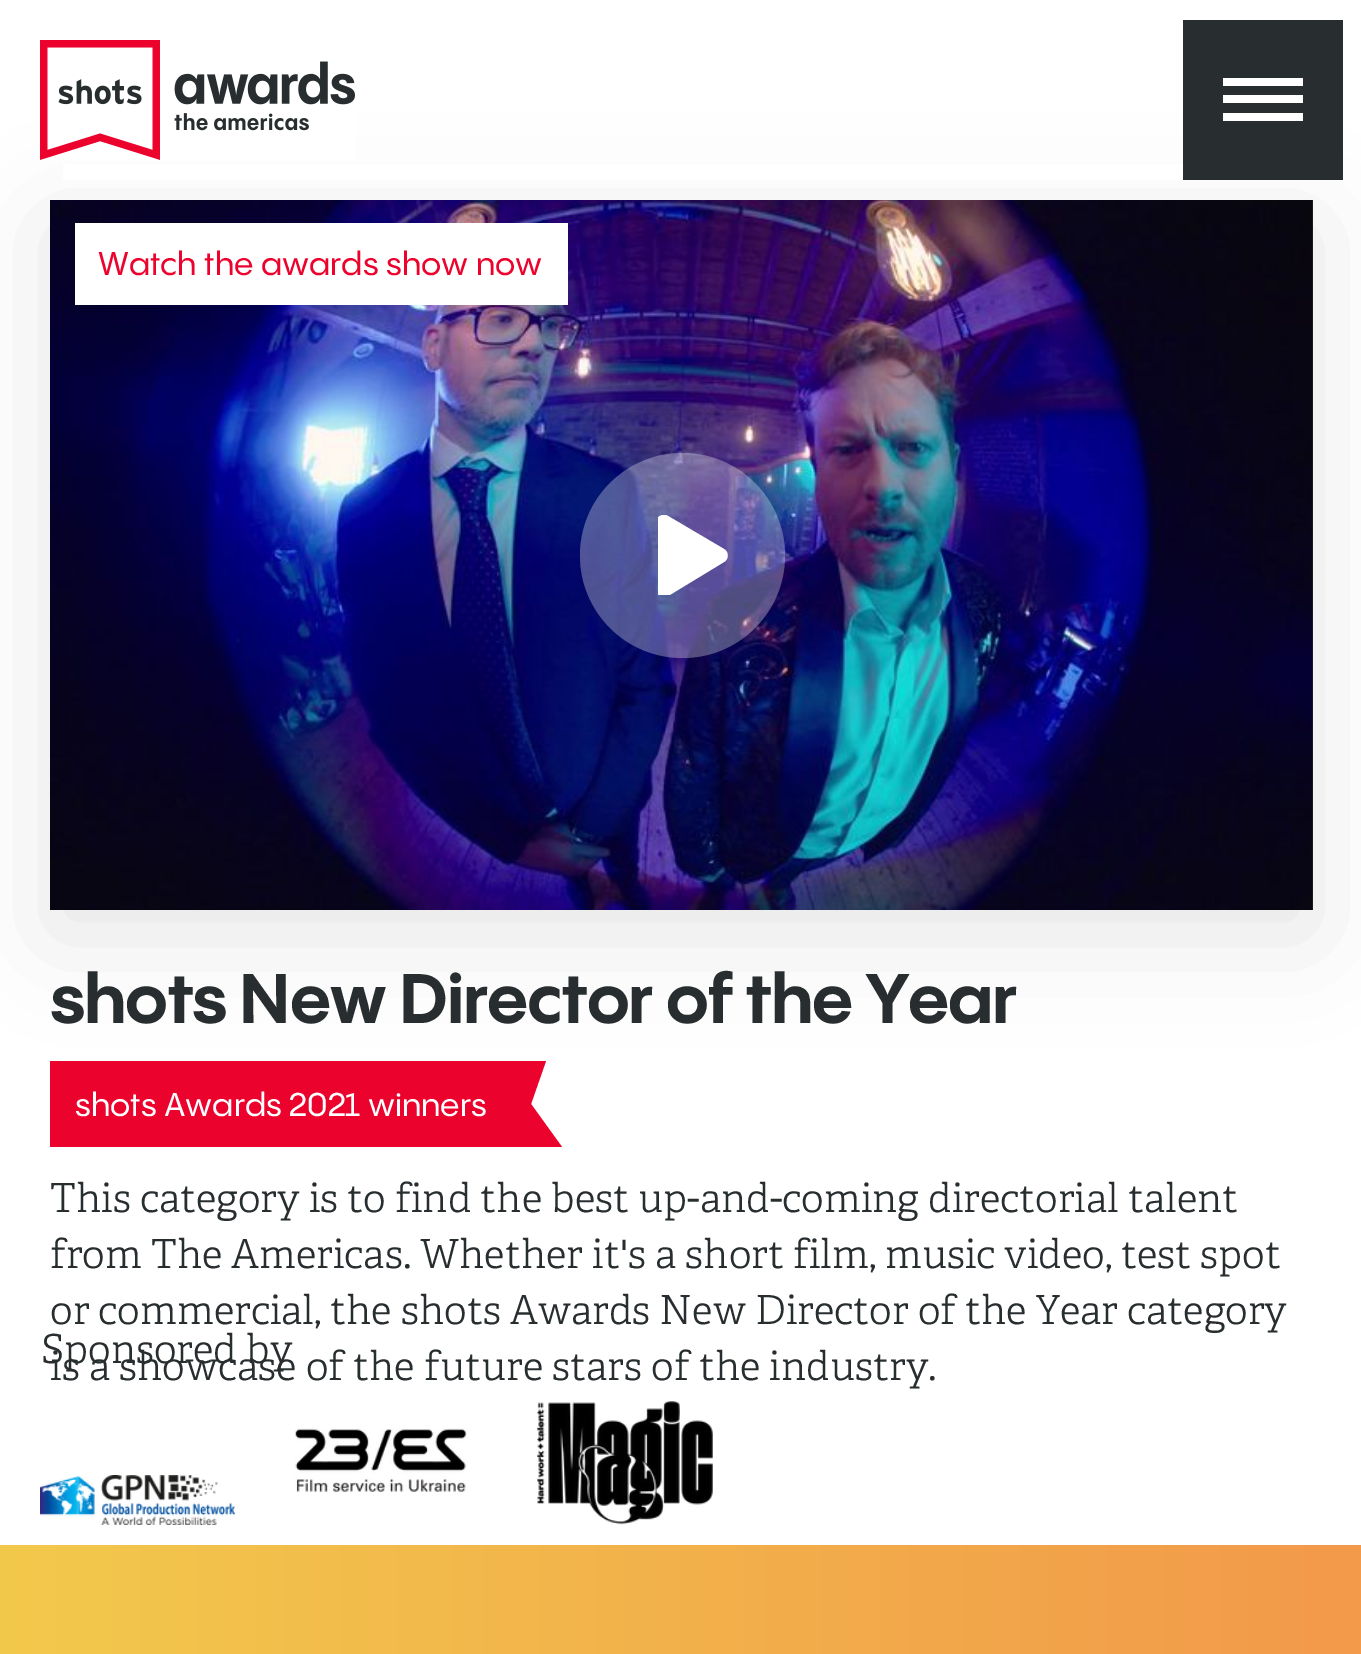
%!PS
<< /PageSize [1361 1654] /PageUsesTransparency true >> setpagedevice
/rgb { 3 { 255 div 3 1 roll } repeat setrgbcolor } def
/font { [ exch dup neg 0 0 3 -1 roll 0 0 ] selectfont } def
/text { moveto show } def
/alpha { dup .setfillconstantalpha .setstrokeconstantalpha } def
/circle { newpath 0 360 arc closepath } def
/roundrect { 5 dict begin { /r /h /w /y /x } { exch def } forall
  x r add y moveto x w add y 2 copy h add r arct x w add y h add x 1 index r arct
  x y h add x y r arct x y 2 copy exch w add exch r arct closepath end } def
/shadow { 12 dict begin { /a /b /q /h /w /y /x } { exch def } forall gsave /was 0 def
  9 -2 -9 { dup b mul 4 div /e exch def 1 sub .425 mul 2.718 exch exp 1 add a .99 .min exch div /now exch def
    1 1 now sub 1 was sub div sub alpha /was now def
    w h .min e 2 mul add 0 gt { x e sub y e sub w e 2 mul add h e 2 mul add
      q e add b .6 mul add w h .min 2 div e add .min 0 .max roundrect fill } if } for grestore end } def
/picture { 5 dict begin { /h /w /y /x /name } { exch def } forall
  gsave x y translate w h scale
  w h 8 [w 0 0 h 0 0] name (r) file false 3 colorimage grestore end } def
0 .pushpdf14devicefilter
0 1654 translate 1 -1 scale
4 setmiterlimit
255 255 255 rgb
0 0 1361 1654 rectfill
0 0 0 rgb
50 225 1263 710 0 50 0.1 shadow
0.95 alpha
255 255 255 rgb
63 164 1120 16 rectfill
1 alpha
(img_01.rgb) 40 40 315 120 picture
40 46 47 rgb
1183 20 160 160 rectfill
255 255 255 rgb
1223 78 80 8 rectfill
1223 95 80 8 rectfill
1223 113 80 8 rectfill
40 46 47 rgb
1312 200 1 710 rectfill
(img_02.rgb) 50 200 1263 710 picture
255 255 255 rgb
75 223 493 82 rectfill
0.3 alpha
682.5 555.5 102.5 circle fill
gsave
658 515 70 80 rectclip
1 alpha
724 549 moveto -56 -33 rlineto -5 -3 -12 0 -12 7 rcurveto 0 66 rlineto 0 6 7 10 12 7 rcurveto 56 -34 rlineto 5 -3 5 -10 0 -13 rcurveto closepath fill
grestore
1 alpha
235 3 45 rgb
50 1061 moveto 0 86 rlineto 512 0 rlineto -31 -43 rlineto 15 -43 rlineto closepath fill
gsave 0 1545 moveto 1361 0 rlineto 0 109 rlineto -1361 0 rlineto closepath clip newpath
<< /ShadingType 2 /ColorSpace /DeviceRGB /Coords [0 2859 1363 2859] /Extend [true true] /Function << /FunctionType 2 /Domain [0 1] /C0 [0.949 0.788 0.298] /C1 [0.949 0.6 0.29] /N 1 >> >> shfill grestore
(img_03.rgb) 294 1428 174 64 picture
(img_04.rgb) 537 1401 176 124 picture
(img_05.rgb) 40 1475 195 50 picture
/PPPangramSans-Medium 32.5 font
(Watch the awards show now) 98 275 text
/PPPangramSans-Bold 69 font
40 46 47 rgb
50 1023 moveto -1.4 0 (shots New Director of the Year) ashow
/PPPangramSans-Medium 32.5 font
255 255 255 rgb
(shots Awards 2021 winners) 75 1116 text
/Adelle-Light 40 font
40 46 47 rgb
(This category is to find the best up-and-coming directorial talent) 50 1212 text
(from The Americas. Whether it's a short film, music video, test spot) 50 1268 text
(or commercial, the shots Awards New Director of the Year category) 50 1324 text
(is a showcase of the future stars of the industry.) 50 1380 text
(Sponsored by) 41 1363 text
.poppdf14devicefilter showpage
